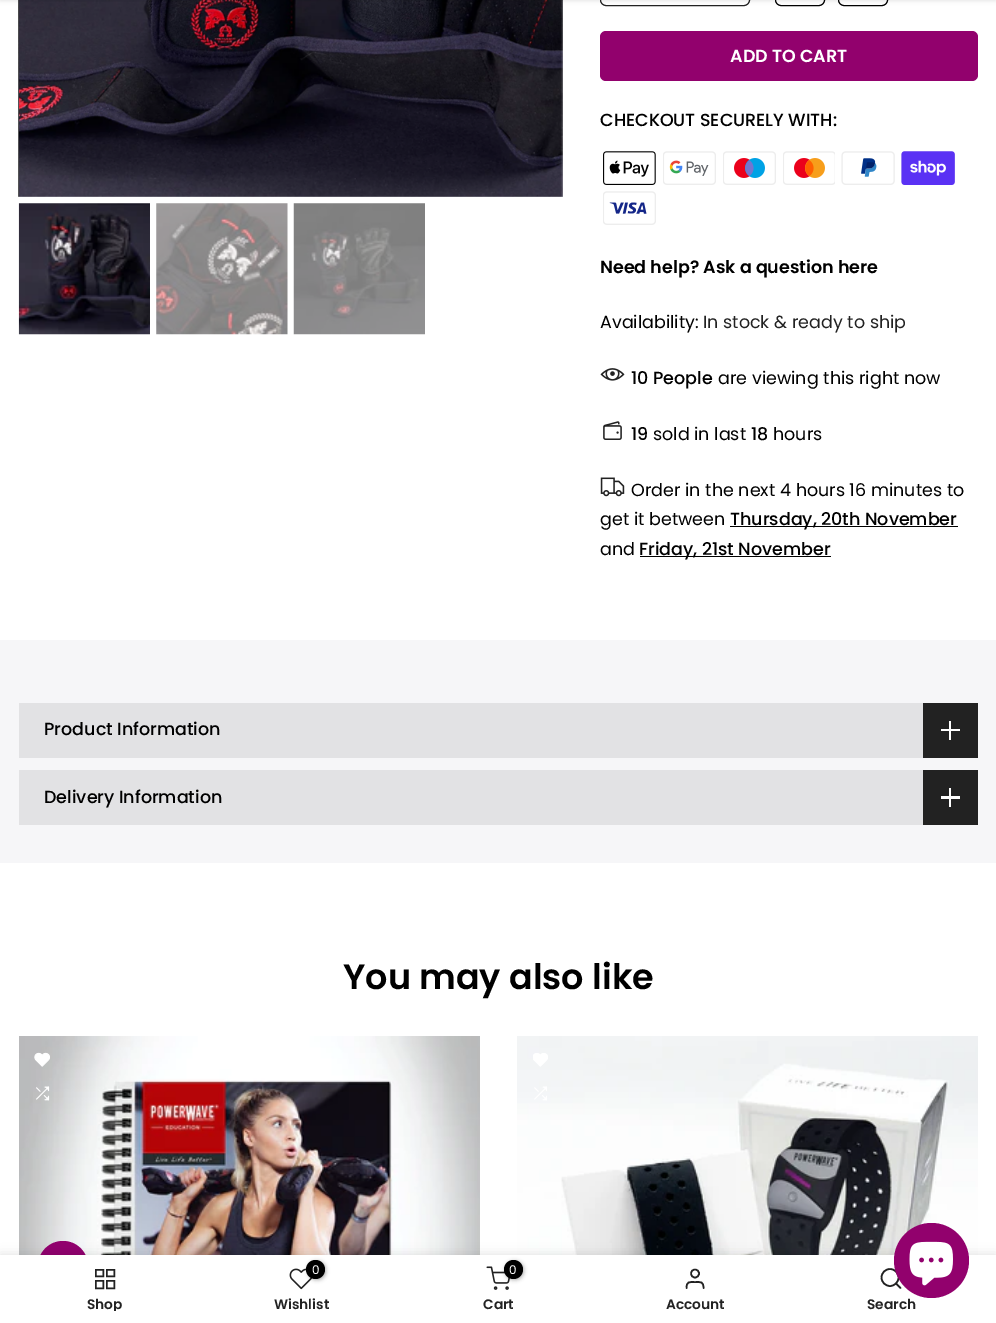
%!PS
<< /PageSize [996 1323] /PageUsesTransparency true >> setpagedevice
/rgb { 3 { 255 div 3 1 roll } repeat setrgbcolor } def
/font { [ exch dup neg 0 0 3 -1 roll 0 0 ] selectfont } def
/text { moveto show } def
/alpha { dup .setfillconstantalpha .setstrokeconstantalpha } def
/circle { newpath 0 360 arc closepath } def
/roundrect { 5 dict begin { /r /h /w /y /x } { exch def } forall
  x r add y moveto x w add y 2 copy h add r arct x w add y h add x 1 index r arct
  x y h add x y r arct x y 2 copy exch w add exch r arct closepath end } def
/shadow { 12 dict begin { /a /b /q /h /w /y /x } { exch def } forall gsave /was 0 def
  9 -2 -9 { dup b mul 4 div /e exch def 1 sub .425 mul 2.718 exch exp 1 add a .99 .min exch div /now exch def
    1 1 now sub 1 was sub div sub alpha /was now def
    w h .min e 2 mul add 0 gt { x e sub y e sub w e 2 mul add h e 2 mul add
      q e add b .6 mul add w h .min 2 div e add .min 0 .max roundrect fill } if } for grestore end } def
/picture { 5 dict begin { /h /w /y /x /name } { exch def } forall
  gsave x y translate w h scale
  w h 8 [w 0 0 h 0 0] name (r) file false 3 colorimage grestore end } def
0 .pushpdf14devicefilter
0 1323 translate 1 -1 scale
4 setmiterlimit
255 255 255 rgb
0 0 996 1323 rectfill
(img_01.rgb) 18 0 1 197 picture
(img_02.rgb) 19 0 544 197 picture
34 34 34 rgb
600.5 -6.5 149 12 5.5 roundrect stroke
0 0 0 rgb
775.5 -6.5 49 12 5.5 roundrect stroke
838.5 -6.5 49 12 5.5 roundrect stroke
0 -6 996 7 0 2 0.1 shadow
(img_03.rgb) 18 203 132 132 picture
(img_04.rgb) 156 203 132 132 picture
(img_05.rgb) 293 203 132 132 picture
146 1 109 rgb
600 31 378 50 6 roundrect fill
(img_06.rgb) 603 151 53 34 picture
(img_07.rgb) 663 151 53 34 picture
(img_08.rgb) 723 151 53 34 picture
(img_09.rgb) 783 151 52 34 picture
(img_10.rgb) 841 151 54 34 picture
(img_11.rgb) 901 151 54 34 picture
(img_12.rgb) 603 191 53 34 picture
(img_13.rgb) 600 368 25 13 picture
(img_14.rgb) 603 421 19 19 picture
(img_15.rgb) 600 477 25 20 picture
0 0 0 rgb
730 526 228 1 rectfill
640 556 191 1 rectfill
246 246 248 rgb
0 640 996 223 rectfill
226 226 228 rgb
19 703 904 55 rectfill
34 34 34 rgb
923 703 55 55 rectfill
255 255 255 rgb
949 721 2 19 rectfill
941 729 19 2 rectfill
226 226 228 rgb
19 770 904 55 rectfill
34 34 34 rgb
923 770 55 55 rectfill
255 255 255 rgb
949 788 2 19 rectfill
941 796 19 3 rectfill
(img_16.rgb) 19 1036 461 219 picture
(img_17.rgb) 34 1052 16 15 picture
(img_18.rgb) 36 1086 14 15 picture
(img_19.rgb) 517 1036 461 219 picture
(img_20.rgb) 533 1053 15 14 picture
(img_21.rgb) 534 1086 13 15 picture
146 1 109 rgb
63 1266 25 circle fill
0 0 0 rgb
0 1255 996 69 0 5.5 0.12 shadow
255 255 255 rgb
0 1255 996 68 rectfill
34 34 34 rgb
1.5 setlinewidth
95.75 1269.75 7.5 6.5 rectstroke
106.75 1269.75 7.5 6.5 rectstroke
95.75 1280.75 7.5 7.5 rectstroke
106.75 1280.75 7.5 7.5 rectstroke
(img_22.rgb) 289 1268 24 22 picture
0 0 0 rgb
308 1261 18 19 9 2 0.3 shadow
315.5 1269.5 9.5 circle fill
(img_23.rgb) 486 1266 24 24 picture
505 1261 19 19 9.5 2 0.3 shadow
513.5 1269.5 9.5 circle fill
34 34 34 rgb
1.6 setlinewidth
695 1273.5 4 circle stroke
1 setlinecap
1 setlinejoin
703.5 1288 moveto 0 -6.5 -2.5 -6 -8.5 -6 rcurveto -6 0 -8.5 -0.5 -8.5 6 rcurveto stroke
0 setlinecap
0 setlinejoin
890 1277.5 8.5 circle stroke
1 setlinecap
1 setlinejoin
900.5 1288 moveto -4.5 -4.5 rlineto stroke
146 1 109 rgb
931.5 1260.5 37.5 circle fill
(img_24.rgb) 909 1241 44 45 picture
/Poppins-SemiBold 17.5 font
255 255 255 rgb
(ADD TO CART) 730 62 text
/Poppins-Medium 17.5 font
0 0 0 rgb
(CHECKOUT SECURELY WITH:) 600 126 text
/Poppins-SemiBold 17.5 font
(Need help? Ask a question here) 600 273 text
/Poppins-Regular 17.5 font
(Availability:) 600 328 text
34 34 34 rgb
(In stock & ready to ship) 703 328 text
/Poppins-Medium 17.5 font
0 0 0 rgb
(10 People) 631 384 text
/Poppins-Regular 17.5 font
(are viewing this right now) 718 384 text
/Poppins-Medium 17.5 font
(19) 631 440 text
/Poppins-Regular 17.5 font
(sold in last) 653 440 text
/Poppins-Medium 17.5 font
(18) 751 440 text
/Poppins-Regular 17.5 font
(hours) 773 440 text
(Order in the next 4 hours 16 minutes to) 631 496 text
(get it between) 600 525 text
/Poppins-Medium 17.5 font
(Thursday, 20th November) 730 525 text
/Poppins-Regular 17.5 font
(and) 600 555 text
/Poppins-Medium 17.5 font
(Friday, 21st November) 639 555 text
(Product Information) 44 735 text
(Delivery Information) 44 803 text
/Poppins-SemiBold 35 font
(You may also like) 343 989 text
gsave
19 1298 171 13 rectclip
/Poppins-SemiBold 13.75 font
34 34 34 rgb
(Shop) 87 1309 text
grestore
/Poppins-Regular 12 font
255 255 255 rgb
(0) 312 1274 text
/Poppins-SemiBold 13.75 font
34 34 34 rgb
(Wishlist) 274 1309 text
/Poppins-Regular 12 font
255 255 255 rgb
(0) 509 1274 text
/Poppins-SemiBold 13.75 font
34 34 34 rgb
(Cart) 483 1309 text
(Account) 666 1309 text
(Search) 867 1309 text
.poppdf14devicefilter showpage
